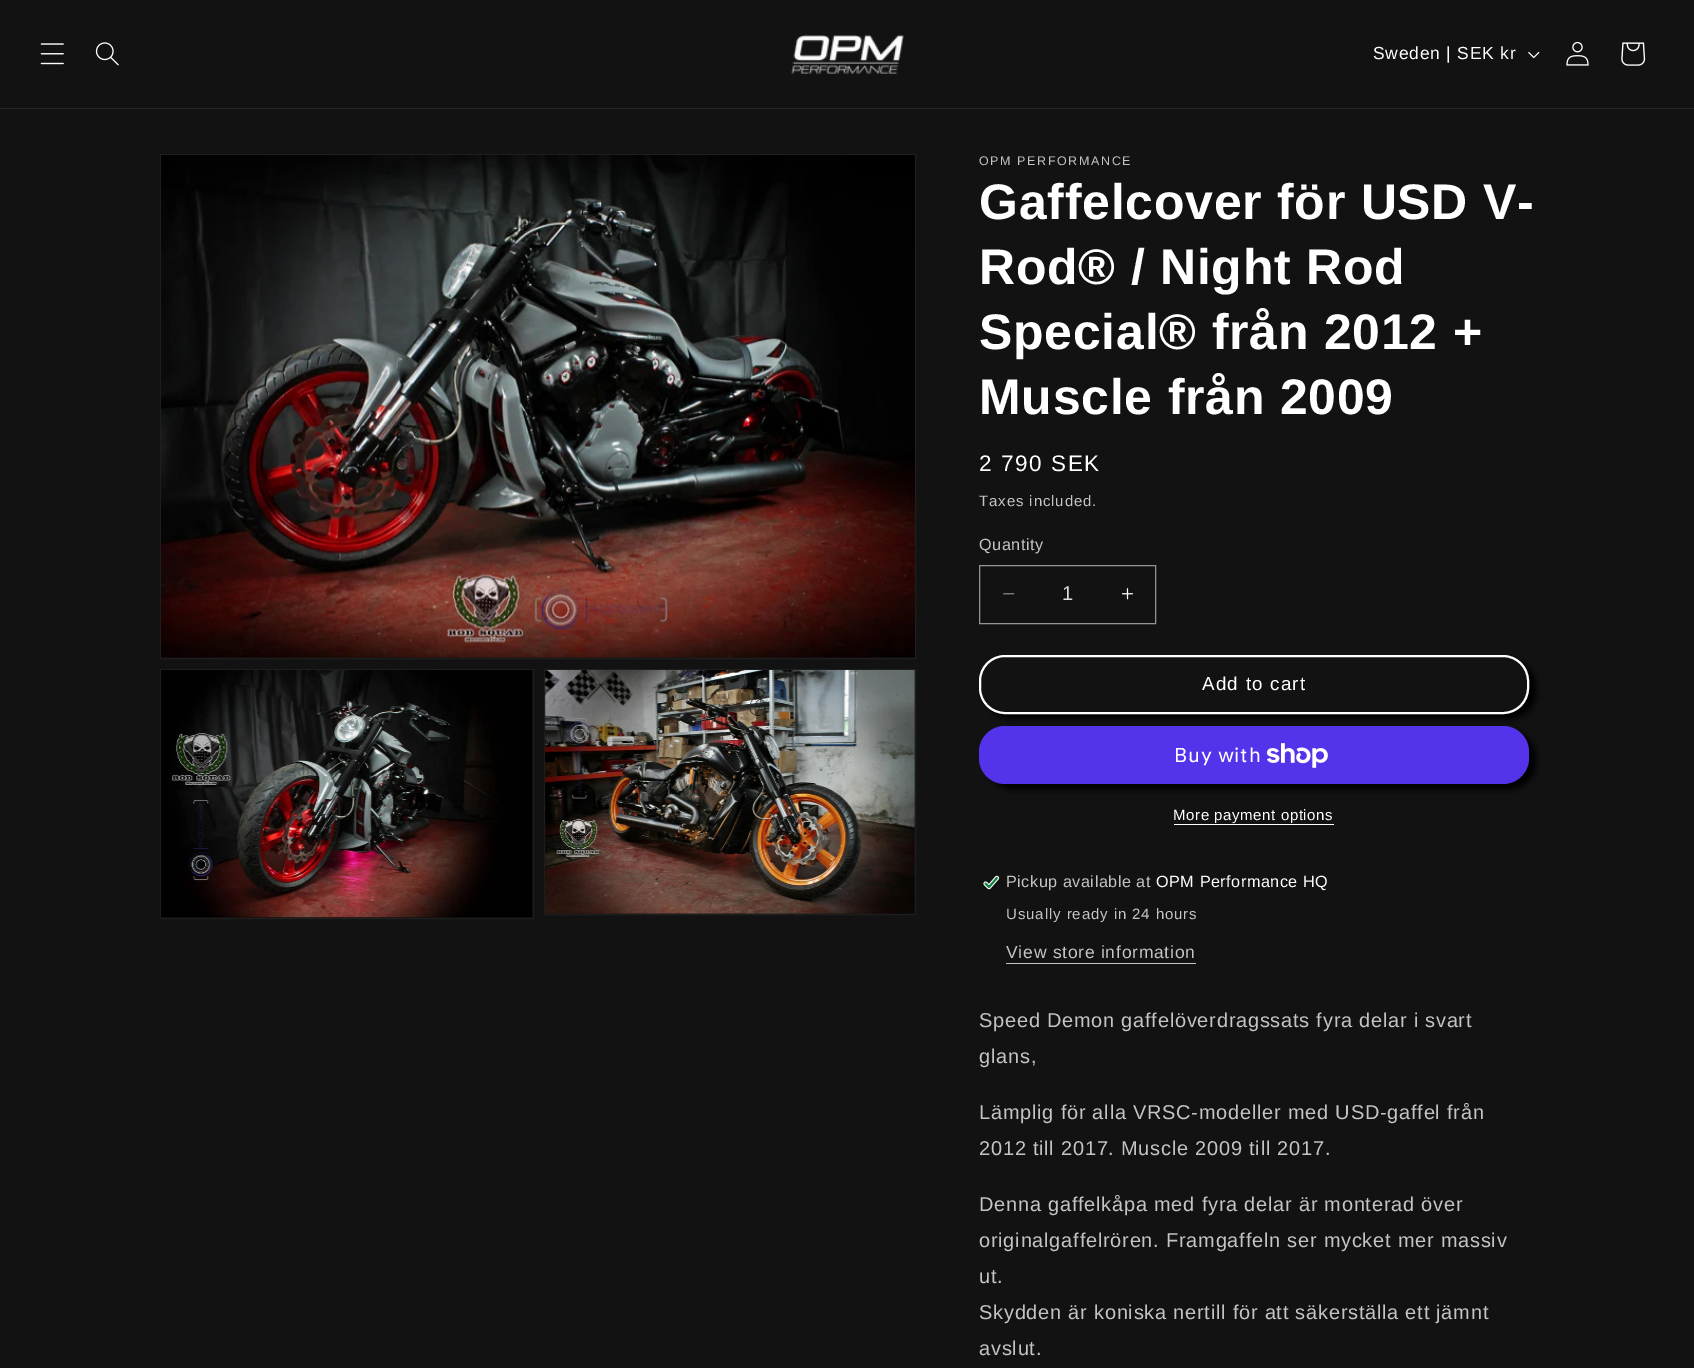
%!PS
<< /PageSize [1694 1368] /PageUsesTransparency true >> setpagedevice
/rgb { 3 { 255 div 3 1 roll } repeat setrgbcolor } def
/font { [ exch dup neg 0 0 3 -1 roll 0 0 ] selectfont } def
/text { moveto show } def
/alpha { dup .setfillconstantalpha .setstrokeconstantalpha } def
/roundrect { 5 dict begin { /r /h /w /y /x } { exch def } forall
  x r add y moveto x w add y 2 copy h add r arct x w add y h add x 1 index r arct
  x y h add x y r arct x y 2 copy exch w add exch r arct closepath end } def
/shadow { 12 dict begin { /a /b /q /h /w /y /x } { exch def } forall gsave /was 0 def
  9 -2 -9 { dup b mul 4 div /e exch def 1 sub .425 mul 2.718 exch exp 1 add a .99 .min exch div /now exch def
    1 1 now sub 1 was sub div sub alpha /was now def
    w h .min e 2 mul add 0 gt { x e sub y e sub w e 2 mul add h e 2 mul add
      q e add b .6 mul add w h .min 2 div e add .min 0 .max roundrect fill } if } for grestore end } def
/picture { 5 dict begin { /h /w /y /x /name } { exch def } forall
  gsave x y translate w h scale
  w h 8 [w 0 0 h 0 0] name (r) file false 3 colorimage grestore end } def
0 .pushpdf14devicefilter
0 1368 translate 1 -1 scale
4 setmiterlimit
18 18 18 rgb
0 0 1694 1368 rectfill
37 37 37 rgb
0 108 1694 1 rectfill
(img_01.rgb) 40 43 24 22 picture
(img_02.rgb) 95 42 24 24 picture
(img_03.rgb) 791 35 113 39 picture
(img_04.rgb) 1528 51 12 8 picture
(img_05.rgb) 1566 41 23 25 picture
(img_06.rgb) 1621 42 25 24 picture
30 30 30 rgb
160.5 154.5 755 504 rectstroke
(img_07.rgb) 161 155 754 503 picture
160.5 669.5 373 249 rectstroke
(img_08.rgb) 161 670 372 248 picture
544.5 669.5 371 245 rectstroke
(img_09.rgb) 544 670 371 244 picture
(img_10.rgb) 1003 593 12 2 picture
(img_11.rgb) 1121 588 13 12 picture
148 148 148 rgb
979.5 565.5 176 58 rectstroke
0 0 0 rgb
986 660 550 59 26 3 1 shadow
18 18 18 rgb
979 655 550 59 26 roundrect fill
979.5 655.5 549 58 25.5 roundrect stroke
255 255 255 rgb
2 setlinewidth
980 656 548 57 25 roundrect stroke
0 0 0 rgb
986 731 550 58 26 3 1 shadow
84 51 235 rgb
979 726 550 58 26 roundrect fill
(img_12.rgb) 1266 743 62 25 picture
255 255 255 rgb
1174 824 160 1 rectfill
(img_13.rgb) 983 875 17 15 picture
196 196 196 rgb
1006 963 190 1 rectfill
/LiberationSans-Regular 17.5 font
255 255 255 rgb
1373 59 moveto 0.75 0 (Sweden | SEK kr) ashow
/LiberationSans-Regular 12.5 font
196 196 196 rgb
979 165 moveto 1.6 0 (OPM PERFORMANCE) ashow
/LiberationSans-Bold 50 font
255 255 255 rgb
979 219 moveto 0.75 0 (Gaffelcover för USD V-) ashow
979 284 moveto 0.75 0 (Rod® / Night Rod) ashow
979 349 moveto 0.75 0 (Special® från 2012 +) ashow
979 414 moveto 0.75 0 (Muscle från 2009) ashow
/LiberationSans-Regular 22.5 font
979 471 moveto 1.6 0 (2 790 SEK) ashow
/LiberationSans-Regular 15 font
196 196 196 rgb
979 506 moveto 0.9 0 (Taxes included.) ashow
/LiberationSans-Regular 16.25 font
979 550 moveto 0.5 0 (Quantity) ashow
/LiberationSans-Regular 20 font
219 219 219 rgb
(1) 1062 600 text
/LiberationSans-Regular 18.75 font
255 255 255 rgb
1202 690 moveto 1.25 0 (Add to cart) ashow
/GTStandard-Regular 20 font
1174 762 moveto 0.75 0 (Buy with) ashow
/LiberationSans-Regular 15 font
1173 820 moveto 0.6 0 (More payment options) ashow
/LiberationSans-Regular 16.25 font
196 196 196 rgb
1006 887 moveto 0.5 0 (Pickup available at) ashow
255 255 255 rgb
1156 887 moveto 0.5 0 (OPM Performance HQ) ashow
/LiberationSans-Regular 15 font
196 196 196 rgb
1006 919 moveto 0.9 0 (Usually ready in 24 hours) ashow
/LiberationSans-Regular 17.5 font
1006 958 moveto 0.75 0 (View store information) ashow
/LiberationSans-Regular 20 font
979 1027 moveto 0.75 0 (Speed Demon gaffelöverdragssats fyra delar i svart) ashow
979 1063 moveto 0.75 0 (glans,) ashow
979 1119 moveto 0.75 0 (Lämplig för alla VRSC-modeller med USD-gaffel från) ashow
979 1155 moveto 0.75 0 (2012 till 2017. Muscle 2009 till 2017.) ashow
979 1211 moveto 0.75 0 (Denna gaffelkåpa med fyra delar är monterad över) ashow
979 1247 moveto 0.75 0 (originalgaffelrören. Framgaffeln ser mycket mer massiv) ashow
979 1283 moveto 0.75 0 (ut.) ashow
979 1319 moveto 0.75 0 (Skydden är koniska nertill för att säkerställa ett jämnt) ashow
979 1355 moveto 0.75 0 (avslut.) ashow
.poppdf14devicefilter showpage
